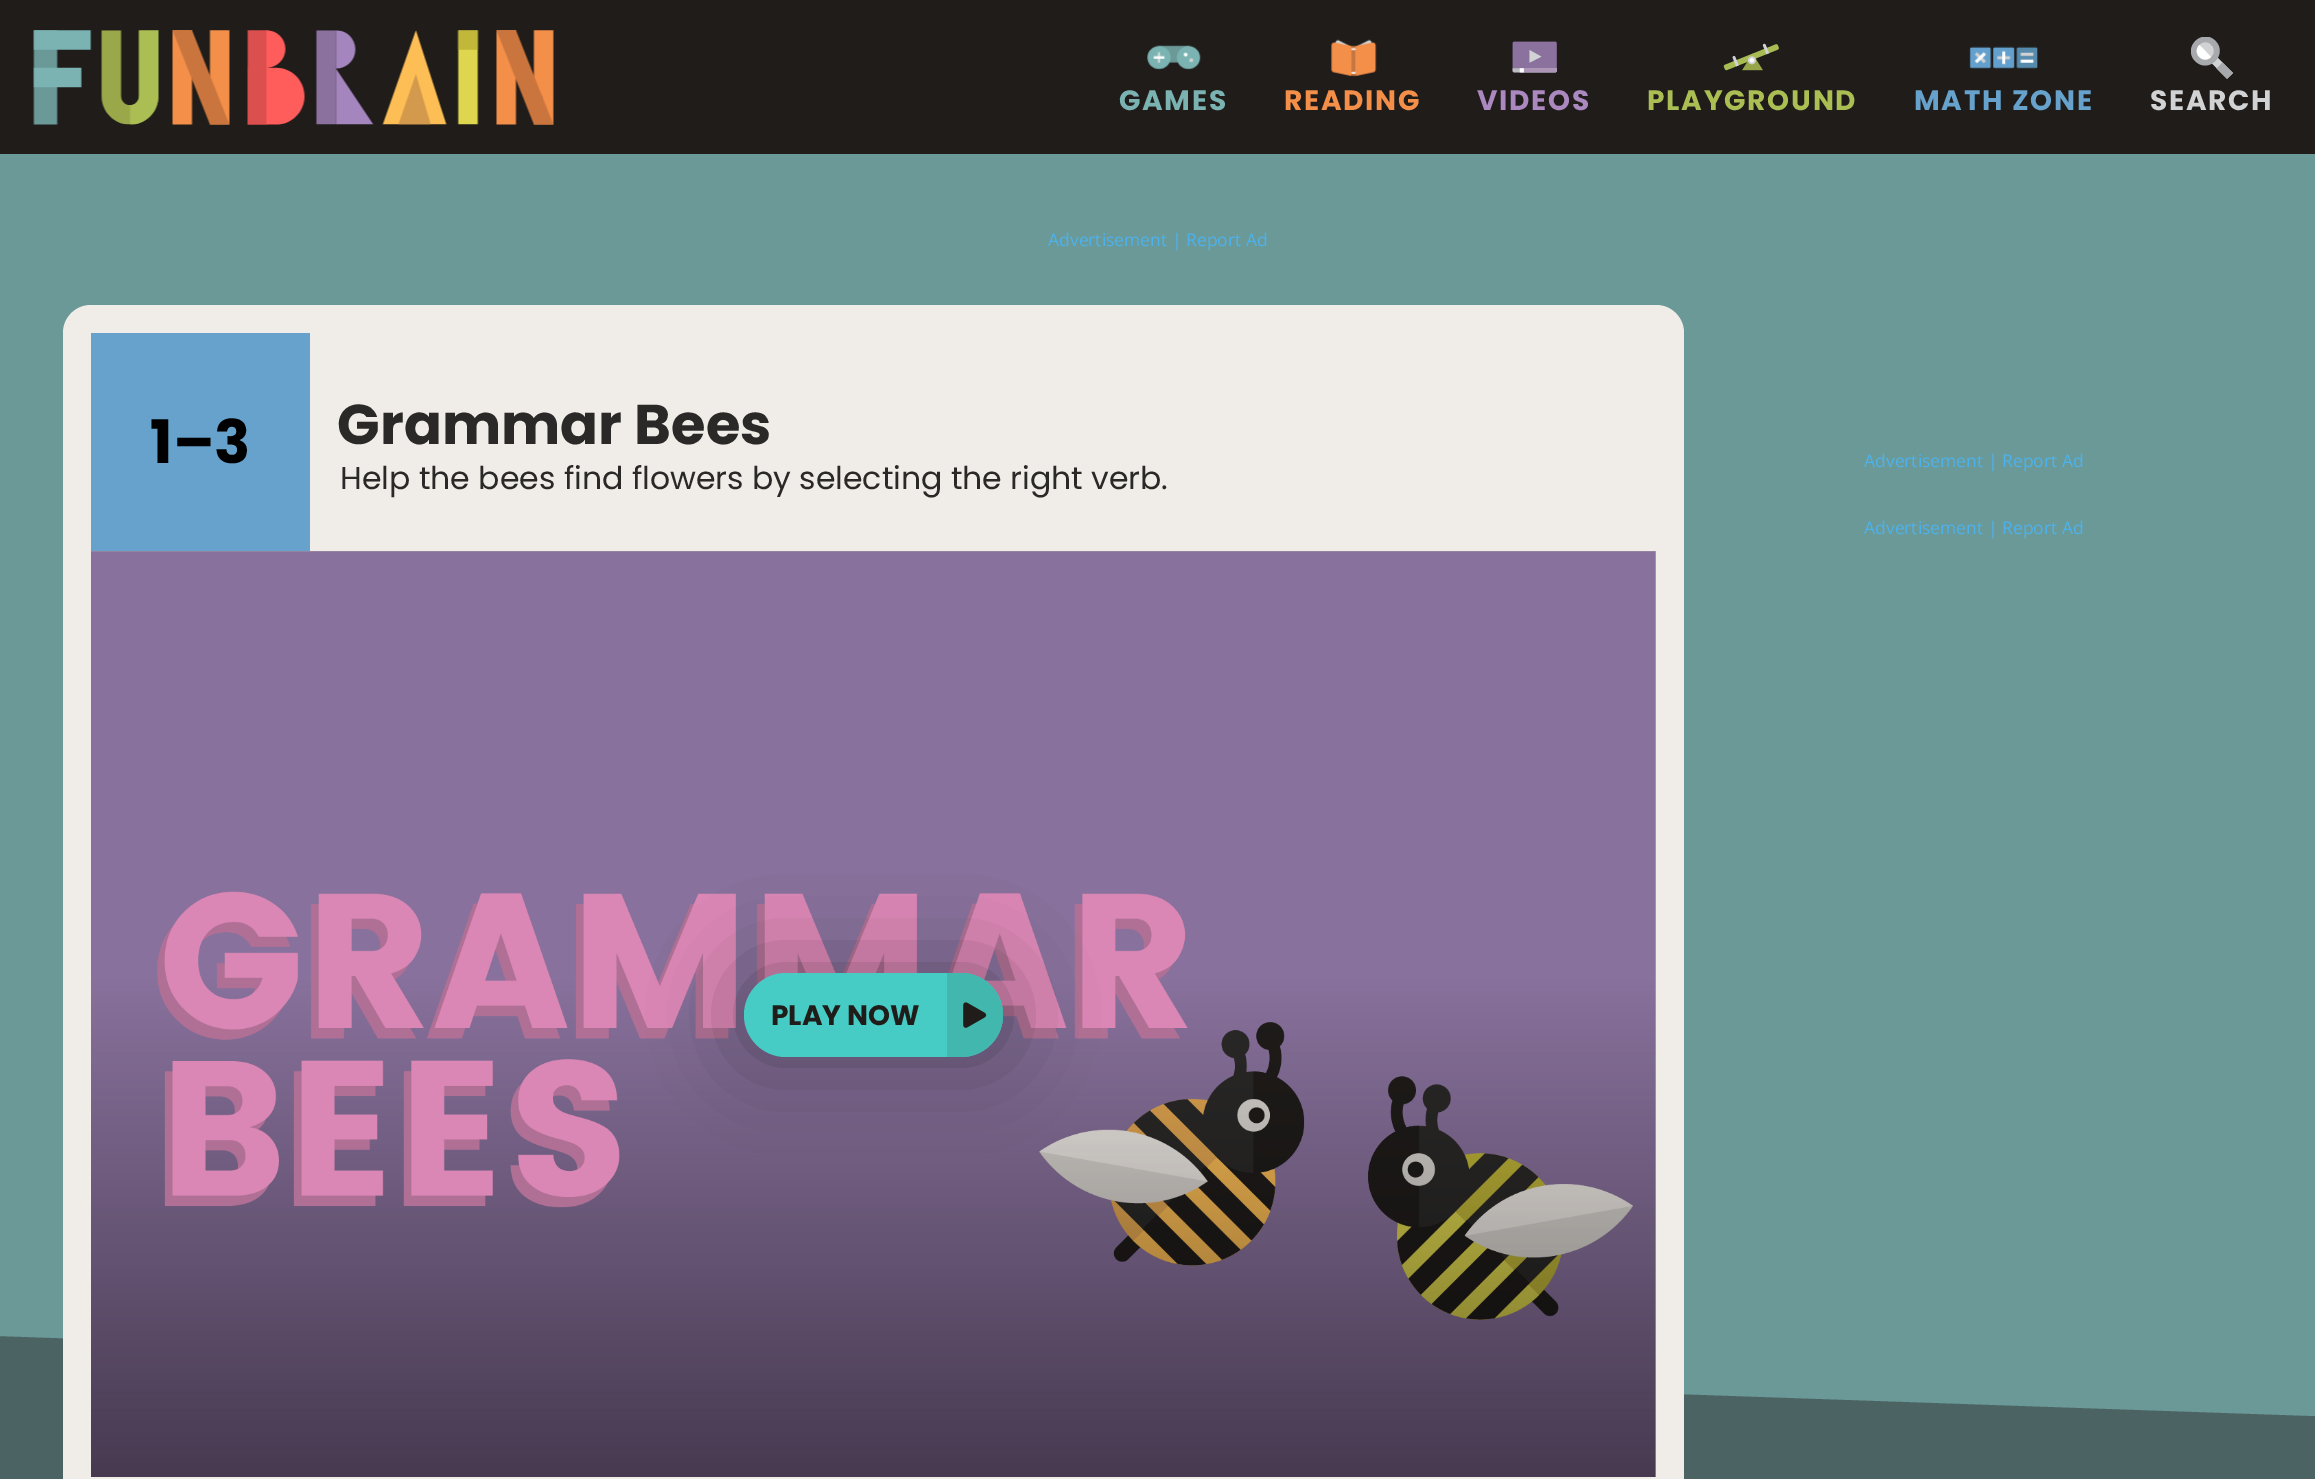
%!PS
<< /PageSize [2315 1479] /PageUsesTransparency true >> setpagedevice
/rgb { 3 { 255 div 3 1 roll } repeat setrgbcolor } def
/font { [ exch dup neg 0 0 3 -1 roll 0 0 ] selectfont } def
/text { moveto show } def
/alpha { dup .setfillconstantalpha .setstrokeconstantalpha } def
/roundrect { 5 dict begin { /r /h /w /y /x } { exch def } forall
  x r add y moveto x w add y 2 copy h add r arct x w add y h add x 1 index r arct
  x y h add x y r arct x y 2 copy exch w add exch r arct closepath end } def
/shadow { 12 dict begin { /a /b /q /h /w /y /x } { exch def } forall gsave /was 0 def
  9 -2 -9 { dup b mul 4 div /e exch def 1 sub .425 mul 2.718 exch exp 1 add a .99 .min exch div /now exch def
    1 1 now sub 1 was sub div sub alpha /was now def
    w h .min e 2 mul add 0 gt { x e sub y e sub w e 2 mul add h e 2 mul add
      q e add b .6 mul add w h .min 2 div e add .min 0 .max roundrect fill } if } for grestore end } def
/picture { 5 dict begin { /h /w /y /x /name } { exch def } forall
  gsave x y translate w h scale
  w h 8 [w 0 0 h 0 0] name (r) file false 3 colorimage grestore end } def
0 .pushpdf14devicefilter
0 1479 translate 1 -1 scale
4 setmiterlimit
75 100 99 rgb
0 0 2315 1479 rectfill
106 153 151 rgb
-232 -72 moveto 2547 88 rlineto 0 1400 rlineto -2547 -88 rlineto closepath fill
31 28 26 rgb
0 0 2315 154 rectfill
(img_01.rgb) 33 30 521 95 picture
(img_02.rgb) 1147 45 54 25 picture
(img_03.rgb) 1331 39 46 38 picture
(img_04.rgb) 1512 41 45 32 picture
(img_05.rgb) 1723 43 56 28 picture
(img_06.rgb) 1969 46 69 23 picture
208 210 211 rgb
2208.5 60 moveto 18.5 18.5 rlineto 6 -5.5 rlineto -19 -19 rlineto closepath fill
gsave
2191 37 42 42 rectclip
167 169 172 rgb
2215.5 41 moveto -13 -13.5 -33.5 6.5 -20.5 20 rcurveto 13.5 13.5 33.5 -6.5 20.5 -20 rcurveto closepath fill
grestore
2211 45 moveto -7.5 -8 -19.5 4.5 -12 12 rcurveto 8 8 20 -4 12 -12 rcurveto closepath fill
255 255 255 rgb
2211 57 moveto -11.5 -12 rlineto -8 8 4 19.5 11.5 12 rcurveto closepath fill
167 169 172 rgb
2216.5 68.5 moveto 10.5 10.5 rlineto 6 -6 rlineto -10.5 -10.5 rlineto closepath fill
240 236 231 rgb
63 305 1621 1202 28 roundrect fill
102 162 204 rgb
91 333 219 218 rectfill
192 187 180 rgb
91 551 1565 926 rectfill
(img_07.rgb) 91 551 1565 926 picture
0 0 0 rgb
744 973 259 84 42 44 0.35 shadow
70 204 197 rgb
744 973 259 84 42 roundrect fill
65 183 174 rgb
947 973 moveto 14 0 rlineto 23 0 42 19 42 42 rcurveto 0 23 -19 42 -42 42 rcurveto -14 0 rlineto closepath fill
(img_08.rgb) 963 1002 24 26 picture
/Poppins-Bold 28 font
122 179 178 rgb
1119 110 moveto 1.75 0 (GAMES) ashow
244 143 74 rgb
1284 110 moveto 1.75 0 (READING) ashow
171 136 191 rgb
1477 110 moveto 1.75 0 (VIDEOS) ashow
170 190 83 rgb
1647 110 moveto 1.75 0 (PLAYGROUND) ashow
102 162 204 rgb
1914 110 moveto 1.75 0 (MATH ZONE) ashow
208 210 211 rgb
2150 110 moveto 1.75 0 (SEARCH) ashow
/OpenSans-Regular 17.5 font
77 178 236 rgb
(Advertisement | Report Ad) 1048 246 text
/Poppins-Bold 60 font
0 0 0 rgb
(1–3) 150 463 text
/Poppins-Bold 56 font
42 41 40 rgb
(Grammar Bees) 337 444 text
/Poppins-Regular 31.5 font
(Help the bees find flowers by selecting the right verb.) 340 489 text
/OpenSans-Regular 17.5 font
77 178 236 rgb
(Advertisement | Report Ad) 1864 467 text
(Advertisement | Report Ad) 1864 534 text
/Poppins-Bold 28 font
31 28 26 rgb
(PLAY NOW) 771 1025 text
.poppdf14devicefilter showpage
